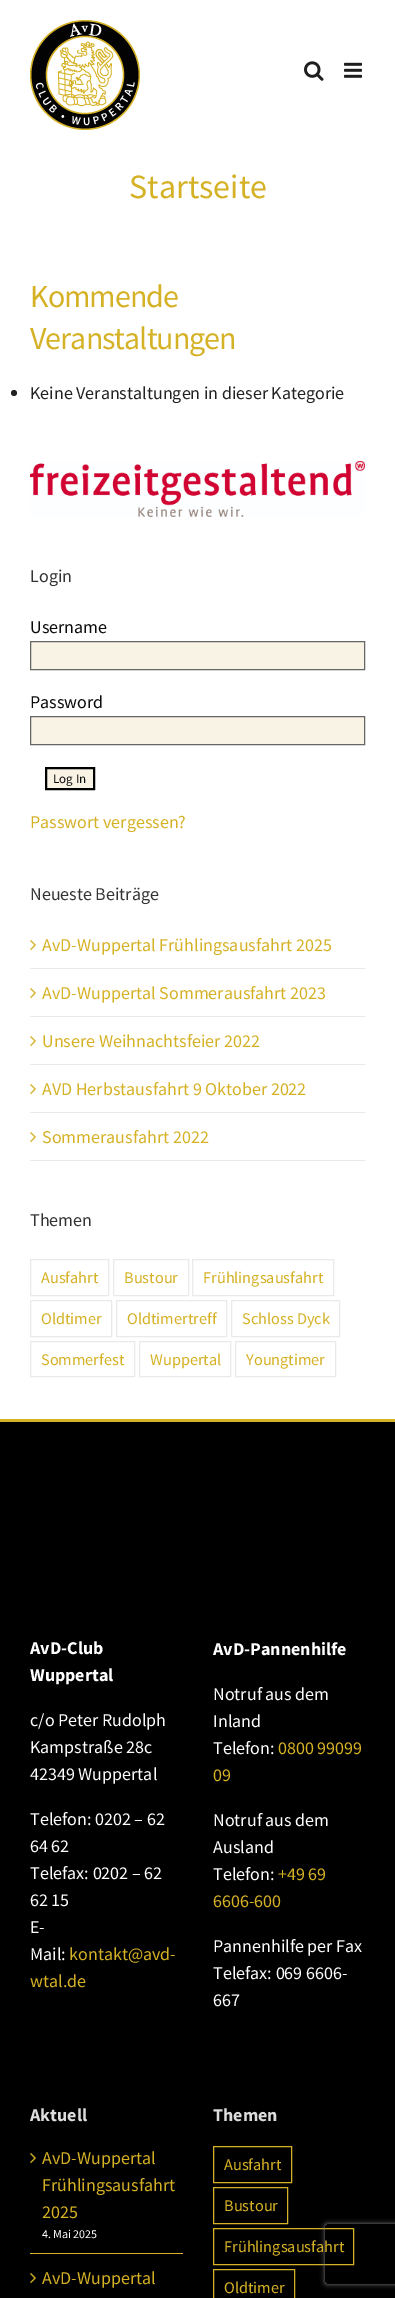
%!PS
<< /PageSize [395 2298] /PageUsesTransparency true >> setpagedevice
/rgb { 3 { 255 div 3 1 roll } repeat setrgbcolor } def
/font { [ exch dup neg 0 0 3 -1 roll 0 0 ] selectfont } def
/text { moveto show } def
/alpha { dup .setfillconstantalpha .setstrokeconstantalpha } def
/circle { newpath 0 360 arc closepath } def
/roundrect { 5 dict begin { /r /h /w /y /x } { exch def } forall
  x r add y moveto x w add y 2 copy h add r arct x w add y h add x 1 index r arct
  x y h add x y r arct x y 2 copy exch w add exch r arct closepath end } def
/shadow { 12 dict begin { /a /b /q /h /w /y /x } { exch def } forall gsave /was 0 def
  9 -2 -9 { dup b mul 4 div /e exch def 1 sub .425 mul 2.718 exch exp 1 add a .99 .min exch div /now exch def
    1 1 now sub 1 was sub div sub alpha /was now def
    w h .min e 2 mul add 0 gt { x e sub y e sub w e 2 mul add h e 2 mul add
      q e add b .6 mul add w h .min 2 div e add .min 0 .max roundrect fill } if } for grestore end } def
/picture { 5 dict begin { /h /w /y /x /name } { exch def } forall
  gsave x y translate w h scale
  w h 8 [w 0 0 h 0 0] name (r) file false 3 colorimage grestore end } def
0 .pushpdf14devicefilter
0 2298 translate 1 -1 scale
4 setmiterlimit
255 255 255 rgb
0 0 395 2298 rectfill
(img_01.rgb) 30 20 110 110 picture
(img_02.rgb) 304 61 20 20 picture
(img_03.rgb) 344 62 18 16 picture
33 33 33 rgb
14 393 3 circle fill
(img_04.rgb) 30 461 335 56 picture
248 243 228 rgb
30.5 641.5 moveto 334 0 rlineto 0 28 rlineto -334 0 rlineto closepath gsave fill grestore
102 102 102 rgb
stroke
248 243 228 rgb
30.5 716.5 moveto 334 0 rlineto 0 28 rlineto -334 0 rlineto closepath gsave fill grestore
102 102 102 rgb
stroke
248 243 228 rgb
46 768 moveto 48 0 rlineto 0 21 rlineto -48 0 rlineto closepath gsave fill grestore
0 0 0 rgb
2 setlinewidth
stroke
235 234 234 rgb
30 968 335 1 rectfill
(img_05.rgb) 30 940 6 10 picture
30 1016 335 1 rectfill
(img_05.rgb) 30 988 6 10 picture
30 1064 335 1 rectfill
(img_05.rgb) 30 1036 6 10 picture
30 1112 335 1 rectfill
(img_05.rgb) 30 1084 6 10 picture
30 1160 335 1 rectfill
(img_05.rgb) 30 1132 6 10 picture
1 setlinewidth
30.5 1259.5 78 36 rectstroke
113.5 1259.5 75 36 rectstroke
192.5 1259.5 141 36 rectstroke
30.5 1300.5 81 36 rectstroke
116.5 1300.5 110 36 rectstroke
231.5 1300.5 108 36 rectstroke
30.5 1341.5 104 35 rectstroke
139.5 1341.5 91 35 rectstroke
235.5 1341.5 100 35 rectstroke
0 0 0 rgb
0 1422 395 876 rectfill
213 177 37 rgb
0 1419 395 3 rectfill
30 2253 153 1 rectfill
(img_06.rgb) 30 2153 6 10 picture
(img_06.rgb) 30 2273 6 10 picture
213.5 2146.5 78 36 rectstroke
213.5 2187.5 74 36 rectstroke
213.5 2228.5 140 36 rectstroke
213.5 2269.5 81 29 rectstroke
gsave
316 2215 moveto 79 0 rlineto 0 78 rlineto -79 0 rlineto closepath 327 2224 moveto 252 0 rlineto 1 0 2 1 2 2 rcurveto 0 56 rlineto 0 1 -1 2 -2 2 rcurveto -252 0 rlineto -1 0 -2 -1 -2 -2 rcurveto 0 -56 rlineto 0 -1 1 -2 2 -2 rcurveto closepath eoclip newpath
128 128 128 rgb
325 2224 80 60 2 2.5 1 shadow
grestore
/SourceSansPro-Regular 34 font
(Startseite) 129 198 text
/SourceSansPro-Regular 32 font
30 307 moveto -1 0 (Kommende) ashow
30 349 moveto -1 0 (Veranstaltungen) ashow
/SourceSansPro-Regular 18 font
33 33 33 rgb
(Keine Veranstaltungen in dieser Kategorie) 30 399 text
51 51 51 rgb
(Login) 30 582 text
10 10 10 rgb
(Username) 30 633 text
(Password) 30 708 text
/SourceSansPro-Regular 13 font
(Log In) 53 783 text
/SourceSansPro-Regular 18 font
213 177 37 rgb
(Passwort vergessen?) 30 828 text
51 51 51 rgb
(Neueste Beiträge) 30 900 text
213 177 37 rgb
(AvD-Wuppertal Frühlingsausfahrt 2025) 42 951 text
(AvD-Wuppertal Sommerausfahrt 2023) 42 999 text
(Unsere Weihnachtsfeier 2022) 42 1047 text
(AVD Herbstausfahrt 9 Oktober 2022) 42 1095 text
(Sommerausfahrt 2022) 42 1143 text
51 51 51 rgb
(Themen) 30 1226 text
/SourceSansPro-Regular 16.25 font
213 177 37 rgb
(Ausfahrt) 41 1283 text
(Bustour) 124 1283 text
(Frühlingsausfahrt) 203 1283 text
(Oldtimer) 41 1324 text
(Oldtimertreff) 127 1324 text
(Schloss Dyck) 242 1324 text
(Sommerfest) 41 1365 text
(Wuppertal) 150 1365 text
(Youngtimer) 246 1365 text
/SourceSansPro-Bold 18 font
255 255 255 rgb
(AvD-Club) 30 1654 text
(Wuppertal) 30 1681 text
/SourceSansPro-Regular 18 font
(c/o Peter Rudolph) 30 1726 text
(Kampstraße 28c) 30 1753 text
(42349 Wuppertal) 30 1780 text
(Telefon: 0202 – 62) 30 1825 text
(64 62) 30 1852 text
(Telefax: 0202 – 62) 30 1879 text
(62 15) 30 1906 text
(E-) 30 1933 text
(Mail:) 30 1960 text
213 177 37 rgb
(kontakt@avd-) 69 1960 text
(wtal.de) 30 1987 text
/SourceSansPro-Bold 18 font
255 255 255 rgb
(AvD-Pannenhilfe) 213 1655 text
/SourceSansPro-Regular 18 font
(Notruf aus dem) 213 1700 text
(Inland) 213 1727 text
(Telefon:) 213 1754 text
213 177 37 rgb
(0800 99099) 278 1754 text
(09) 213 1781 text
255 255 255 rgb
(Notruf aus dem) 213 1826 text
(Ausland) 213 1853 text
(Telefon:) 213 1880 text
213 177 37 rgb
(+49 69) 278 1880 text
(6606-600) 213 1907 text
255 255 255 rgb
(Pannenhilfe per Fax) 213 1952 text
(Telefax: 069 6606-) 213 1979 text
(667) 213 2006 text
/SourceSansPro-Bold 18 font
221 221 221 rgb
(Aktuell) 30 2121 text
/SourceSansPro-Regular 18 font
213 177 37 rgb
(AvD-Wuppertal) 42 2164 text
(Frühlingsausfahrt) 42 2191 text
(2025) 42 2218 text
/SourceSansPro-Regular 12 font
255 255 255 rgb
(4. Mai 2025) 42 2238 text
/SourceSansPro-Regular 18 font
213 177 37 rgb
(AvD-Wuppertal) 42 2284 text
/SourceSansPro-Bold 18 font
221 221 221 rgb
(Themen) 213 2121 text
/SourceSansPro-Regular 16.25 font
213 177 37 rgb
(Ausfahrt) 224 2170 text
(Bustour) 224 2211 text
(Frühlingsausfahrt) 224 2252 text
(Oldtimer) 224 2293 text
.poppdf14devicefilter showpage
